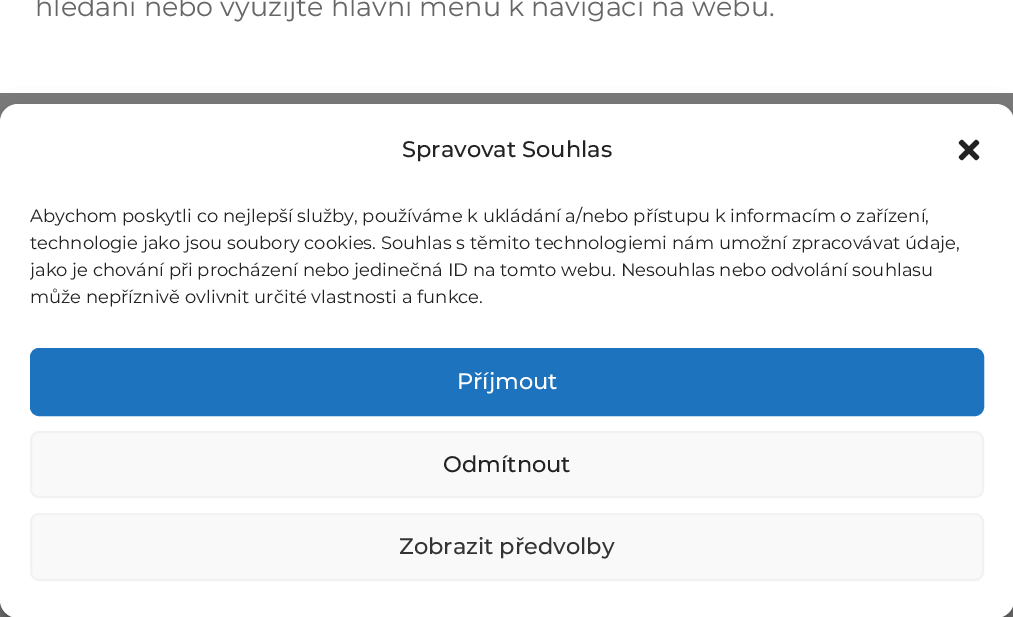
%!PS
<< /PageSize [1013 617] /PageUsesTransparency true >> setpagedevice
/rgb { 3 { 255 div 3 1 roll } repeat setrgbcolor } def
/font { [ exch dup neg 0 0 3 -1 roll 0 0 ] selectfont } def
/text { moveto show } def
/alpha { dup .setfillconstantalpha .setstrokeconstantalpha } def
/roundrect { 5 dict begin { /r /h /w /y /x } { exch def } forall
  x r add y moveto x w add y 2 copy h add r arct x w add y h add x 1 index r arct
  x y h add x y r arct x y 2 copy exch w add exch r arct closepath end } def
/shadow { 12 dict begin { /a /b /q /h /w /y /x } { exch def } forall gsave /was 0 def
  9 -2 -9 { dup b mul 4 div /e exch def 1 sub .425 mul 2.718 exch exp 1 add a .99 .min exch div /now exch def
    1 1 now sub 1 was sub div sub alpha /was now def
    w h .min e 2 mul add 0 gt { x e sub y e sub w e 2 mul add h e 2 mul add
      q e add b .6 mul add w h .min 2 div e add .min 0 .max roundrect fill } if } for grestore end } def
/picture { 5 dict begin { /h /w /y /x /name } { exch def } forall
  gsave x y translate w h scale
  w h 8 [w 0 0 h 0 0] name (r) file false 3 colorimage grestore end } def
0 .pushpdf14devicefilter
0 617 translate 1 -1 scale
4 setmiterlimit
255 255 255 rgb
0 0 1013 617 rectfill
122 122 122 rgb
0 93 1013 524 rectfill
0 0 0 rgb
0 113 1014 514 18 4.5 0.23 shadow
0 119 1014 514 18 15 0.19 shadow
255 255 255 rgb
0 104 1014 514 18 roundrect fill
(img_01.rgb) 958 139 22 22 picture
30 115 190 rgb
31 349 952 66 8 roundrect gsave fill grestore
2 setlinewidth
stroke
249 249 249 rgb
31 432 952 65 8 roundrect gsave fill grestore
242 242 242 rgb
stroke
249 249 249 rgb
31 514 952 66 8 roundrect gsave fill grestore
242 242 242 rgb
stroke
/Montserrat-Regular 27 font
102 102 102 rgb
(hledání nebo využijte hlavní menu k navigaci na webu.) 35 16 text
/Montserrat-Medium 22.5 font
34 34 34 rgb
(Spravovat Souhlas) 402 157 text
/Montserrat-Regular 18 font
(Abychom poskytli co nejlepší služby, používáme k ukládání a/nebo přístupu k informacím o zařízení,) 30 222 text
(technologie jako jsou soubory cookies. Souhlas s těmito technologiemi nám umožní zpracovávat údaje,) 30 249 text
gsave
30 203 954 115 rectclip
(jako je chování při procházení nebo jedinečná ID na tomto webu. Nesouhlas nebo odvolání souhlasu) 30 276 text
grestore
(může nepříznivě ovlivnit určité vlastnosti a funkce.) 30 303 text
/Montserrat-Medium 22.5 font
255 255 255 rgb
(Příjmout) 457 389 text
34 34 34 rgb
(Odmítnout) 443 472 text
51 51 51 rgb
(Zobrazit předvolby) 399 554 text
.poppdf14devicefilter showpage
